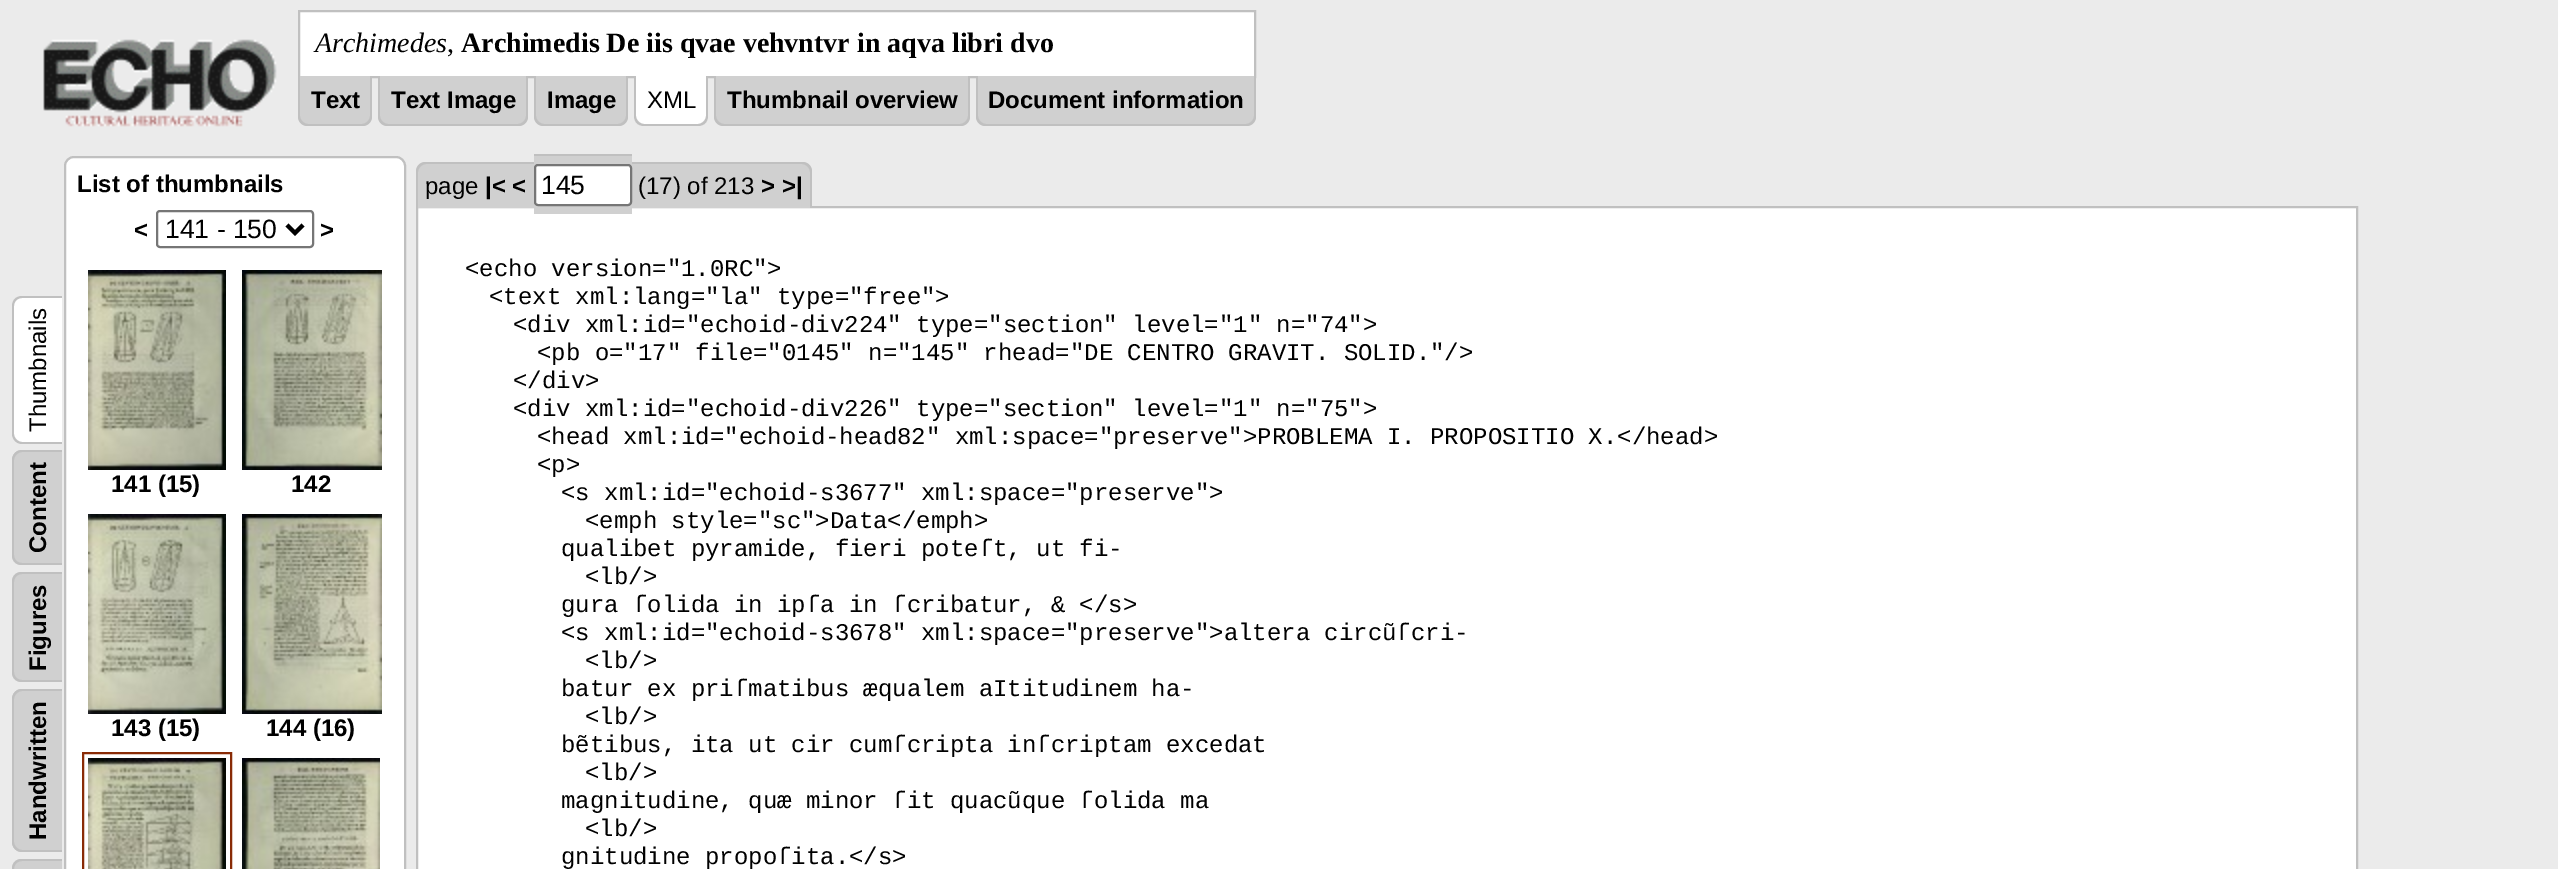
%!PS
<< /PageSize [2558 869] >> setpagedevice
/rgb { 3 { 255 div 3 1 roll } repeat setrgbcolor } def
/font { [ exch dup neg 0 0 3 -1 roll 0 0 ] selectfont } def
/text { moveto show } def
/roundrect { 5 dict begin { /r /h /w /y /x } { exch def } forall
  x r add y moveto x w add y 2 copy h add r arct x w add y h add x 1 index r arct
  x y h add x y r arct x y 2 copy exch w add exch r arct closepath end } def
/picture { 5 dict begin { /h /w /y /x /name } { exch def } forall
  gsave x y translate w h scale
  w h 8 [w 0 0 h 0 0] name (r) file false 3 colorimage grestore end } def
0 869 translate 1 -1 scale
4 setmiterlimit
235 235 235 rgb
0 0 2558 869 rectfill
(img_01.rgb) 43 39 234 88 picture
255 255 255 rgb
299 11 moveto 956 0 rlineto 0 66 rlineto -956 0 rlineto closepath gsave fill grestore
192 192 192 rgb
2 setlinewidth
stroke
208 208 208 rgb
298 76 moveto 74 0 rlineto 0 40 rlineto 0 5.5 -4.5 10 -10 10 rcurveto -54 0 rlineto -5.5 0 -10 -4.5 -10 -10 rcurveto closepath fill
192 192 192 rgb
298 76 moveto 74 0 rlineto 0 40 rlineto 0 6 -4 10 -10 10 rcurveto -54 0 rlineto -6 0 -10 -4 -10 -10 rcurveto closepath 300 76 moveto 70 0 rlineto 0 40 rlineto 0 4 -4 8 -8 8 rcurveto -54 0 rlineto -4 0 -8 -4 -8 -8 rcurveto closepath eofill
208 208 208 rgb
378 76 moveto 150 0 rlineto 0 40 rlineto 0 5.5 -4.5 10 -10 10 rcurveto -130 0 rlineto -5.5 0 -10 -4.5 -10 -10 rcurveto closepath fill
192 192 192 rgb
378 76 moveto 150 0 rlineto 0 40 rlineto 0 6 -4 10 -10 10 rcurveto -130 0 rlineto -6 0 -10 -4 -10 -10 rcurveto closepath 380 76 moveto 146 0 rlineto 0 40 rlineto 0 4 -4 8 -8 8 rcurveto -130 0 rlineto -4 0 -8 -4 -8 -8 rcurveto closepath eofill
208 208 208 rgb
534 76 moveto 94 0 rlineto 0 40 rlineto 0 5.5 -4.5 10 -10 10 rcurveto -74 0 rlineto -5.5 0 -10 -4.5 -10 -10 rcurveto closepath fill
192 192 192 rgb
534 76 moveto 94 0 rlineto 0 40 rlineto 0 6 -4 10 -10 10 rcurveto -74 0 rlineto -6 0 -10 -4 -10 -10 rcurveto closepath 536 76 moveto 90 0 rlineto 0 40 rlineto 0 4 -4 8 -8 8 rcurveto -74 0 rlineto -4 0 -8 -4 -8 -8 rcurveto closepath eofill
255 255 255 rgb
634 76 moveto 74 0 rlineto 0 40 rlineto 0 5.5 -4.5 10 -10 10 rcurveto -54 0 rlineto -5.5 0 -10 -4.5 -10 -10 rcurveto closepath fill
192 192 192 rgb
634 76 moveto 74 0 rlineto 0 40 rlineto 0 6 -4 10 -10 10 rcurveto -54 0 rlineto -6 0 -10 -4 -10 -10 rcurveto closepath 636 76 moveto 70 0 rlineto 0 40 rlineto 0 4 -4 8 -8 8 rcurveto -54 0 rlineto -4 0 -8 -4 -8 -8 rcurveto closepath eofill
208 208 208 rgb
714 76 moveto 256 0 rlineto 0 40 rlineto 0 5.5 -4.5 10 -10 10 rcurveto -236 0 rlineto -5.5 0 -10 -4.5 -10 -10 rcurveto closepath fill
192 192 192 rgb
714 76 moveto 256 0 rlineto 0 40 rlineto 0 6 -4 10 -10 10 rcurveto -236 0 rlineto -6 0 -10 -4 -10 -10 rcurveto closepath 716 76 moveto 252 0 rlineto 0 40 rlineto 0 4 -4 8 -8 8 rcurveto -236 0 rlineto -4 0 -8 -4 -8 -8 rcurveto closepath eofill
208 208 208 rgb
976 76 moveto 280 0 rlineto 0 40 rlineto 0 5.5 -4.5 10 -10 10 rcurveto -260 0 rlineto -5.5 0 -10 -4.5 -10 -10 rcurveto closepath fill
192 192 192 rgb
976 76 moveto 280 0 rlineto 0 40 rlineto 0 6 -4 10 -10 10 rcurveto -260 0 rlineto -6 0 -10 -4 -10 -10 rcurveto closepath 978 76 moveto 276 0 rlineto 0 40 rlineto 0 4 -4 8 -8 8 rcurveto -260 0 rlineto -4 0 -8 -4 -8 -8 rcurveto closepath eofill
255 255 255 rgb
12 434 moveto 0 -128 rlineto 0 -6 4 -10 10 -10 rcurveto 40 0 rlineto 0 148 rlineto -40 0 rlineto -6 0 -10 -5 -10 -10 rcurveto closepath fill
192 192 192 rgb
12 434 moveto 0 -128 rlineto 0 -6 4 -10 10 -10 rcurveto 40 0 rlineto 0 148 rlineto -40 0 rlineto -6 0 -10 -5 -10 -10 rcurveto closepath 14 434 moveto 0 -128 rlineto 0 -5 4 -8 8 -8 rcurveto 40 0 rlineto 0 144 rlineto -40 0 rlineto -4 0 -8 -4 -8 -8 rcurveto closepath eofill
208 208 208 rgb
12 555 moveto 0 -95 rlineto 0 -5 4 -10 10 -10 rcurveto 40 0 rlineto 0 115 rlineto -40 0 rlineto -6 0 -10 -4 -10 -10 rcurveto closepath fill
192 192 192 rgb
12 555 moveto 0 -95 rlineto 0 -5 4 -10 10 -10 rcurveto 40 0 rlineto 0 115 rlineto -40 0 rlineto -6 0 -10 -4 -10 -10 rcurveto closepath 14 555 moveto 0 -95 rlineto 0 -4 4 -8 8 -8 rcurveto 40 0 rlineto 0 111 rlineto -40 0 rlineto -4 0 -8 -3 -8 -8 rcurveto closepath eofill
208 208 208 rgb
12 672 moveto 0 -90 rlineto 0 -6 4 -10 10 -10 rcurveto 40 0 rlineto 0 110 rlineto -40 0 rlineto -6 0 -10 -4 -10 -10 rcurveto closepath fill
192 192 192 rgb
12 672 moveto 0 -90 rlineto 0 -6 4 -10 10 -10 rcurveto 40 0 rlineto 0 110 rlineto -40 0 rlineto -6 0 -10 -4 -10 -10 rcurveto closepath 14 672 moveto 0 -90 rlineto 0 -5 4 -8 8 -8 rcurveto 40 0 rlineto 0 106 rlineto -40 0 rlineto -4 0 -8 -3 -8 -8 rcurveto closepath eofill
208 208 208 rgb
12 842 moveto 0 -143 rlineto 0 -5 4 -10 10 -10 rcurveto 40 0 rlineto 0 163 rlineto -40 0 rlineto -6 0 -10 -5 -10 -10 rcurveto closepath fill
192 192 192 rgb
12 842 moveto 0 -143 rlineto 0 -5 4 -10 10 -10 rcurveto 40 0 rlineto 0 163 rlineto -40 0 rlineto -6 0 -10 -5 -10 -10 rcurveto closepath 14 842 moveto 0 -143 rlineto 0 -4 4 -8 8 -8 rcurveto 40 0 rlineto 0 159 rlineto -40 0 rlineto -4 0 -8 -4 -8 -8 rcurveto closepath eofill
208 208 208 rgb
12 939 moveto 0 -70 rlineto 0 -6 4 -10 10 -10 rcurveto 40 0 rlineto 0 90 rlineto -40 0 rlineto -6 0 -10 -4 -10 -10 rcurveto closepath fill
192 192 192 rgb
12 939 moveto 0 -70 rlineto 0 -6 4 -10 10 -10 rcurveto 40 0 rlineto 0 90 rlineto -40 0 rlineto -6 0 -10 -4 -10 -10 rcurveto closepath 14 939 moveto 0 -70 rlineto 0 -5 4 -8 8 -8 rcurveto 40 0 rlineto 0 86 rlineto -40 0 rlineto -4 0 -8 -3 -8 -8 rcurveto closepath eofill
255 255 255 rgb
65 157 340 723 9 roundrect gsave fill grestore
192 192 192 rgb
stroke
118 118 118 rgb
157 211 156 36 3 roundrect stroke
0 0 0 rgb
4 setlinewidth
287 225 moveto 8 8 rlineto 8 -8 rlineto stroke
(img_02.rgb) 88 270 138 200 picture
(img_03.rgb) 242 270 140 200 picture
(img_04.rgb) 88 514 138 200 picture
(img_05.rgb) 242 514 140 200 picture
137 43 6 rgb
2 setlinewidth
83 753 148 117 rectstroke
(img_06.rgb) 88 758 138 111 picture
(img_07.rgb) 242 758 138 111 picture
255 255 255 rgb
417 207 moveto 1940 0 rlineto 0 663 rlineto -1940 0 rlineto closepath gsave fill grestore
192 192 192 rgb
stroke
208 208 208 rgb
426 162 moveto 60 0 rlineto 0 46 rlineto -70 0 rlineto 0 -36 rlineto 0 -5.5 4.5 -10 10 -10 rcurveto closepath fill
192 192 192 rgb
426 162 moveto 60 0 rlineto 0 46 rlineto -70 0 rlineto 0 -36 rlineto 0 -6 4 -10 10 -10 rcurveto closepath 426 164 moveto 60 0 rlineto 0 44 rlineto -68 0 rlineto 0 -36 rlineto 0 -4 4 -8 8 -8 rcurveto closepath eofill
208 208 208 rgb
486 164 20 44 rectfill
192 192 192 rgb
486 162 20 2 rectfill
208 208 208 rgb
506 162 6 46 rectfill
192 192 192 rgb
506 162 20 2 rectfill
208 208 208 rgb
512 164 14 44 rectfill
526 162 8 46 rectfill
192 192 192 rgb
526 162 8 2 rectfill
208 208 208 rgb
534 156 98 58 rectfill
192 192 192 rgb
534 154 98 2 rectfill
208 208 208 rgb
632 162 6 46 rectfill
192 192 192 rgb
632 162 142 2 rectfill
208 208 208 rgb
638 164 136 44 rectfill
774 162 8 46 rectfill
192 192 192 rgb
774 162 8 2 rectfill
208 208 208 rgb
782 162 moveto 20 0 rlineto 5.5 0 10 4.5 10 10 rcurveto 0 36 rlineto -30 0 rlineto closepath fill
192 192 192 rgb
782 162 moveto 20 0 rlineto 6 0 10 4 10 10 rcurveto 0 36 rlineto -30 0 rlineto closepath 782 164 moveto 20 0 rlineto 4 0 8 4 8 8 rcurveto 0 36 rlineto -28 0 rlineto closepath eofill
255 255 255 rgb
535 165 96 40 3 roundrect gsave fill grestore
118 118 118 rgb
stroke
/LiberationSerif-Italic 28 font
0 0 0 rgb
(Archimedes) 315 52 text
/LiberationSerif-Regular 28 font
(,) 447 52 text
/LiberationSerif-Bold 28 font
(Archimedis De iis qvae vehvntvr in aqva libri dvo) 461 52 text
/LiberationSans-Bold 24 font
(Text) 311 108 text
(Text Image) 391 108 text
(Image) 547 108 text
/LiberationSans-Regular 24 font
(XML) 647 108 text
/LiberationSans-Bold 24 font
(Thumbnail overview) 727 108 text
(Document information) 988 108 text
/LiberationSans-Regular 24 font
gsave 46 432 translate -90 rotate 0 0 moveto (Thumbnails) show grestore
/LiberationSans-Bold 24 font
gsave 46 553 translate -90 rotate 0 0 moveto (Content) show grestore
gsave 46 671 translate -90 rotate 0 0 moveto (Figures) show grestore
gsave 46 840 translate -90 rotate 0 0 moveto (Handwritten) show grestore
(List of thumbnails) 77 192 text
(<) 134 238 text
/LiberationSans-Regular 26.5 font
(141 - 150) 165 238 text
/LiberationSans-Bold 24 font
(>) 320 238 text
(141 \(15\)) 111 492 text
(142) 291 492 text
(143 \(15\)) 111 736 text
(144 \(16\)) 266 736 text
/LiberationSans-Regular 24 font
(page) 425 194 text
/LiberationSans-Bold 24 font
(|< <) 485 194 text
/LiberationSans-Regular 26.5 font
(145) 541 194 text
/LiberationSans-Regular 24 font
(\(17\) of 213) 638 194 text
/LiberationSans-Bold 24 font
(> >|) 761 194 text
/LiberationMono-Regular 24 font
(<echo version="1.0RC">) 465 276 text
(<text xml:lang="la" type="free">) 489 304 text
(<div xml:id="echoid-div224" type="section" level="1" n="74">) 513 332 text
(<pb o="17" file="0145" n="145" rhead="DE CENTRO GRAVIT. SOLID."/>) 537 360 text
(</div>) 513 388 text
(<div xml:id="echoid-div226" type="section" level="1" n="75">) 513 416 text
(<head xml:id="echoid-head82" xml:space="preserve">PROBLEMA I. PROPOSITIO X.</head>) 537 444 text
(<p>) 537 472 text
(<s xml:id="echoid-s3677" xml:space="preserve">) 561 500 text
(<emph style="sc">Data</emph>) 585 528 text
(qualibet pyramide, fieri poteſt, ut fi-) 561 556 text
(<lb/>) 585 584 text
(gura ſolida in ipſa in ſcribatur, & </s>) 561 612 text
(<s xml:id="echoid-s3678" xml:space="preserve">altera circũſcri-) 561 640 text
(<lb/>) 585 668 text
(batur ex priſmatibus æqualem aItitudinem ha-) 561 696 text
(<lb/>) 585 724 text
(bẽtibus, ita ut cir cumſcripta inſcriptam excedat) 561 752 text
(<lb/>) 585 780 text
(magnitudine, quæ minor ſit quacũque ſolida ma) 561 808 text
(<lb/>) 585 836 text
(gnitudine propoſita.</s>) 561 864 text
showpage
